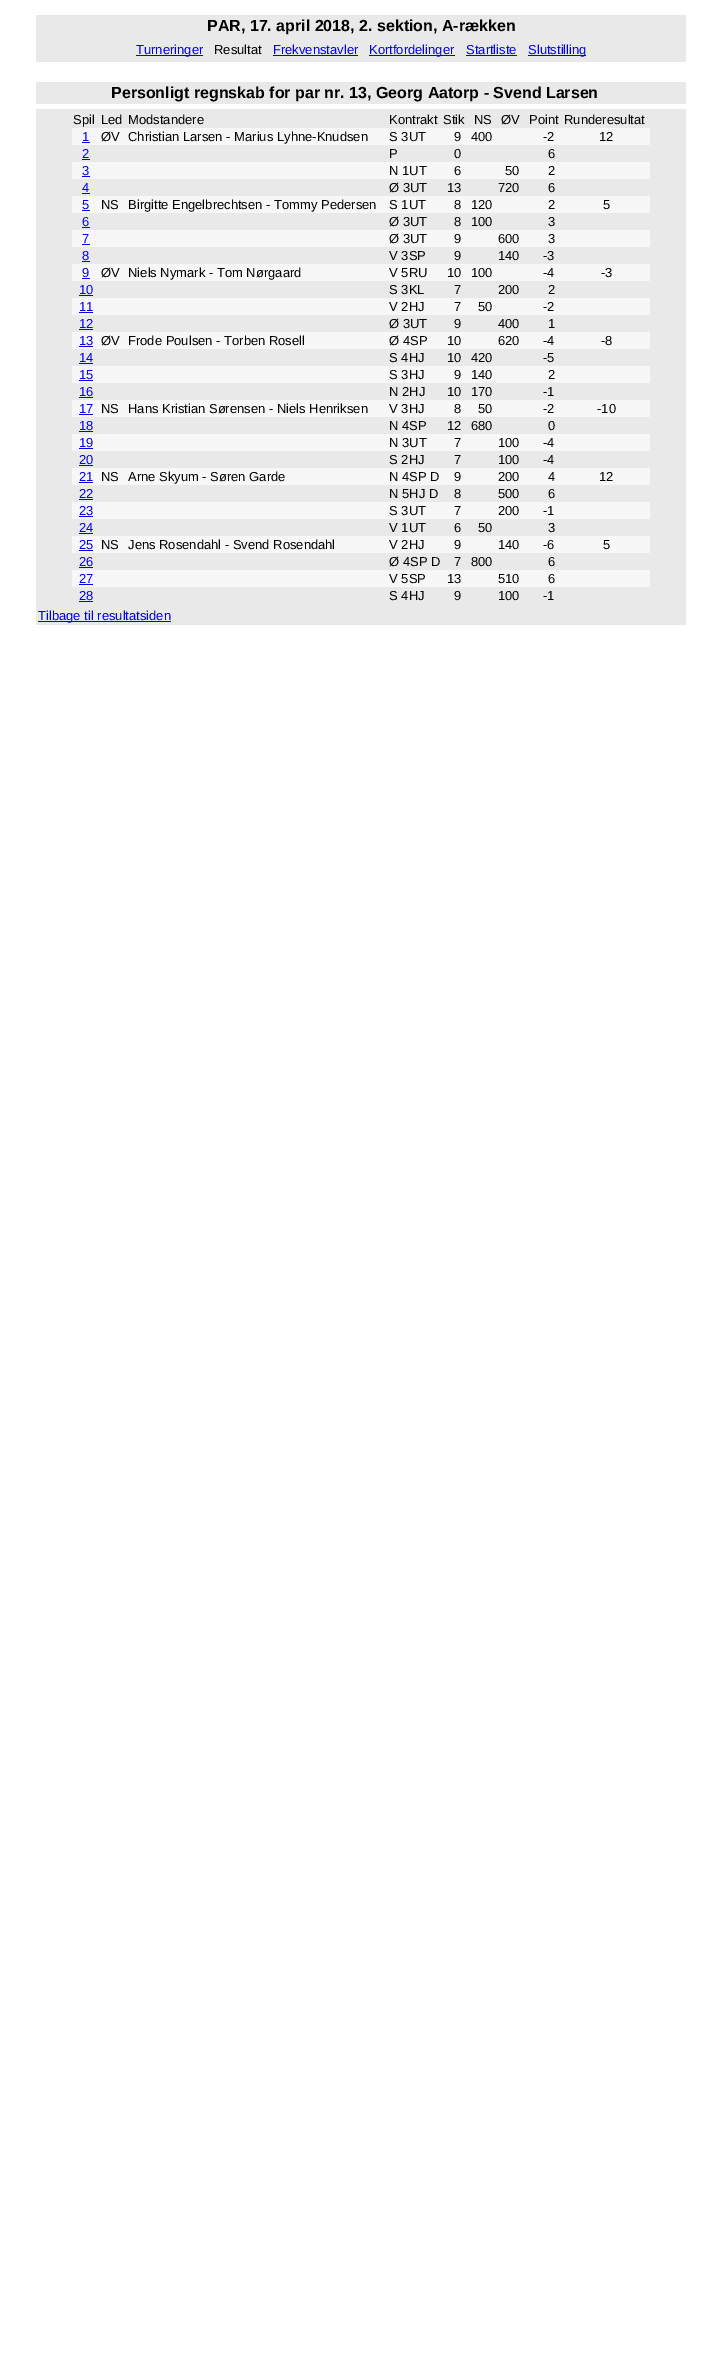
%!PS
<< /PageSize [722 2353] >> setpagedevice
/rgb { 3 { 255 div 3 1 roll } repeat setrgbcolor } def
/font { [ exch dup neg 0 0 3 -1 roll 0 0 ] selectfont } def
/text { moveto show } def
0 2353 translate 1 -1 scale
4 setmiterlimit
255 255 255 rgb
0 0 722 2353 rectfill
233 233 233 rgb
36 15 650 47 rectfill
0 0 238 rgb
136 55 67 1 rectfill
273 55 85 1 rectfill
369 55 86 1 rectfill
466 55 51 1 rectfill
528 55 58 1 rectfill
233 233 233 rgb
36 82 650 543 rectfill
255 255 255 rgb
36 104 650 5 rectfill
247 247 247 rgb
72 128 578 17 rectfill
0 0 238 rgb
82 142 8 1 rectfill
82 159 8 1 rectfill
247 247 247 rgb
72 162 578 17 rectfill
0 0 238 rgb
82 176 8 1 rectfill
82 193 8 1 rectfill
247 247 247 rgb
72 196 578 17 rectfill
0 0 238 rgb
82 210 8 1 rectfill
82 227 8 1 rectfill
247 247 247 rgb
72 230 578 17 rectfill
0 0 238 rgb
82 244 8 1 rectfill
82 261 8 1 rectfill
247 247 247 rgb
72 264 578 17 rectfill
0 0 238 rgb
82 278 8 1 rectfill
79 295 14 1 rectfill
247 247 247 rgb
72 298 578 17 rectfill
0 0 238 rgb
79 312 14 1 rectfill
79 329 14 1 rectfill
247 247 247 rgb
72 332 578 17 rectfill
0 0 238 rgb
79 346 14 1 rectfill
79 363 14 1 rectfill
247 247 247 rgb
72 366 578 17 rectfill
0 0 238 rgb
79 380 14 1 rectfill
79 397 14 1 rectfill
247 247 247 rgb
72 400 578 17 rectfill
0 0 238 rgb
79 414 14 1 rectfill
79 431 14 1 rectfill
247 247 247 rgb
72 434 578 17 rectfill
0 0 238 rgb
79 448 14 1 rectfill
79 465 14 1 rectfill
247 247 247 rgb
72 468 578 17 rectfill
0 0 238 rgb
79 482 14 1 rectfill
79 499 14 1 rectfill
247 247 247 rgb
72 502 578 17 rectfill
0 0 238 rgb
79 516 14 1 rectfill
79 533 14 1 rectfill
247 247 247 rgb
72 536 578 17 rectfill
0 0 238 rgb
79 550 14 1 rectfill
79 567 14 1 rectfill
247 247 247 rgb
72 570 578 17 rectfill
0 0 238 rgb
79 584 14 1 rectfill
79 601 14 1 rectfill
38 621 133 1 rectfill
/LiberationSans-Bold 16 font
0 0 0 rgb
(PAR, 17. april 2018, 2. sektion, A-rækken) 207 31 text
/LiberationSans-Regular 13 font
0 0 238 rgb
(Turneringer) 136 54 text
0 0 0 rgb
(Resultat) 214 54 text
0 0 238 rgb
(Frekvenstavler) 273 54 text
(Kortfordelinger) 369 54 text
(Startliste) 466 54 text
(Slutstilling) 528 54 text
/LiberationSans-Bold 16 font
0 0 0 rgb
(Personligt regnskab for par nr. 13, Georg Aatorp - Svend Larsen) 111 98 text
/LiberationSans-Regular 13 font
(Spil) 73 124 text
(Led) 101 124 text
(Modstandere) 128 124 text
(Kontrakt) 389 124 text
(Stik) 443 124 text
(NS) 474 124 text
(ØV) 501 124 text
(Point) 529 124 text
(Runderesultat) 564 124 text
0 0 238 rgb
(1) 82 141 text
0 0 0 rgb
(ØV) 101 141 text
(Christian Larsen - Marius Lyhne-Knudsen) 128 141 text
(S 3UT) 389 141 text
(9) 454 141 text
(400) 471 141 text
(-2) 543 141 text
(12) 599 141 text
0 0 238 rgb
(2) 82 158 text
0 0 0 rgb
(P) 389 158 text
(0) 454 158 text
(6) 548 158 text
0 0 238 rgb
(3) 82 175 text
0 0 0 rgb
(N 1UT) 389 175 text
(6) 454 175 text
(50) 505 175 text
(2) 548 175 text
0 0 238 rgb
(4) 82 192 text
0 0 0 rgb
(Ø 3UT) 389 192 text
(13) 447 192 text
(720) 498 192 text
(6) 548 192 text
0 0 238 rgb
(5) 82 209 text
0 0 0 rgb
(NS) 101 209 text
(Birgitte Engelbrechtsen - Tommy Pedersen) 128 209 text
(S 1UT) 389 209 text
(8) 454 209 text
(120) 471 209 text
(2) 548 209 text
(5) 603 209 text
0 0 238 rgb
(6) 82 226 text
0 0 0 rgb
(Ø 3UT) 389 226 text
(8) 454 226 text
(100) 471 226 text
(3) 548 226 text
0 0 238 rgb
(7) 82 243 text
0 0 0 rgb
(Ø 3UT) 389 243 text
(9) 454 243 text
(600) 498 243 text
(3) 548 243 text
0 0 238 rgb
(8) 82 260 text
0 0 0 rgb
(V 3SP) 389 260 text
(9) 454 260 text
(140) 498 260 text
(-3) 543 260 text
0 0 238 rgb
(9) 82 277 text
0 0 0 rgb
(ØV) 101 277 text
(Niels Nymark - Tom Nørgaard) 128 277 text
(V 5RU) 389 277 text
(10) 447 277 text
(100) 471 277 text
(-4) 543 277 text
(-3) 601 277 text
0 0 238 rgb
(10) 79 294 text
0 0 0 rgb
(S 3KL) 389 294 text
(7) 454 294 text
(200) 498 294 text
(2) 548 294 text
0 0 238 rgb
(11) 79 311 text
0 0 0 rgb
(V 2HJ) 389 311 text
(7) 454 311 text
(50) 478 311 text
(-2) 543 311 text
0 0 238 rgb
(12) 79 328 text
0 0 0 rgb
(Ø 3UT) 389 328 text
(9) 454 328 text
(400) 498 328 text
(1) 548 328 text
0 0 238 rgb
(13) 79 345 text
0 0 0 rgb
(ØV) 101 345 text
(Frode Poulsen - Torben Rosell) 128 345 text
(Ø 4SP) 389 345 text
(10) 447 345 text
(620) 498 345 text
(-4) 543 345 text
(-8) 601 345 text
0 0 238 rgb
(14) 79 362 text
0 0 0 rgb
(S 4HJ) 389 362 text
(10) 447 362 text
(420) 471 362 text
(-5) 543 362 text
0 0 238 rgb
(15) 79 379 text
0 0 0 rgb
(S 3HJ) 389 379 text
(9) 454 379 text
(140) 471 379 text
(2) 548 379 text
0 0 238 rgb
(16) 79 396 text
0 0 0 rgb
(N 2HJ) 389 396 text
(10) 447 396 text
(170) 471 396 text
(-1) 543 396 text
0 0 238 rgb
(17) 79 413 text
0 0 0 rgb
(NS) 101 413 text
(Hans Kristian Sørensen - Niels Henriksen) 128 413 text
(V 3HJ) 389 413 text
(8) 454 413 text
(50) 478 413 text
(-2) 543 413 text
(-10) 597 413 text
0 0 238 rgb
(18) 79 430 text
0 0 0 rgb
(N 4SP) 389 430 text
(12) 447 430 text
(680) 471 430 text
(0) 548 430 text
0 0 238 rgb
(19) 79 447 text
0 0 0 rgb
(N 3UT) 389 447 text
(7) 454 447 text
(100) 498 447 text
(-4) 543 447 text
0 0 238 rgb
(20) 79 464 text
0 0 0 rgb
(S 2HJ) 389 464 text
(7) 454 464 text
(100) 498 464 text
(-4) 543 464 text
0 0 238 rgb
(21) 79 481 text
0 0 0 rgb
(NS) 101 481 text
(Arne Skyum - Søren Garde) 128 481 text
(N 4SP D) 389 481 text
(9) 454 481 text
(200) 498 481 text
(4) 548 481 text
(12) 599 481 text
0 0 238 rgb
(22) 79 498 text
0 0 0 rgb
(N 5HJ D) 389 498 text
(8) 454 498 text
(500) 498 498 text
(6) 548 498 text
0 0 238 rgb
(23) 79 515 text
0 0 0 rgb
(S 3UT) 389 515 text
(7) 454 515 text
(200) 498 515 text
(-1) 543 515 text
0 0 238 rgb
(24) 79 532 text
0 0 0 rgb
(V 1UT) 389 532 text
(6) 454 532 text
(50) 478 532 text
(3) 548 532 text
0 0 238 rgb
(25) 79 549 text
0 0 0 rgb
(NS) 101 549 text
(Jens Rosendahl - Svend Rosendahl) 128 549 text
(V 2HJ) 389 549 text
(9) 454 549 text
(140) 498 549 text
(-6) 543 549 text
(5) 603 549 text
0 0 238 rgb
(26) 79 566 text
0 0 0 rgb
(Ø 4SP D) 389 566 text
(7) 454 566 text
(800) 471 566 text
(6) 548 566 text
0 0 238 rgb
(27) 79 583 text
0 0 0 rgb
(V 5SP) 389 583 text
(13) 447 583 text
(510) 498 583 text
(6) 548 583 text
0 0 238 rgb
(28) 79 600 text
0 0 0 rgb
(S 4HJ) 389 600 text
(9) 454 600 text
(100) 498 600 text
(-1) 543 600 text
0 0 238 rgb
(Tilbage til resultatsiden) 38 620 text
showpage
